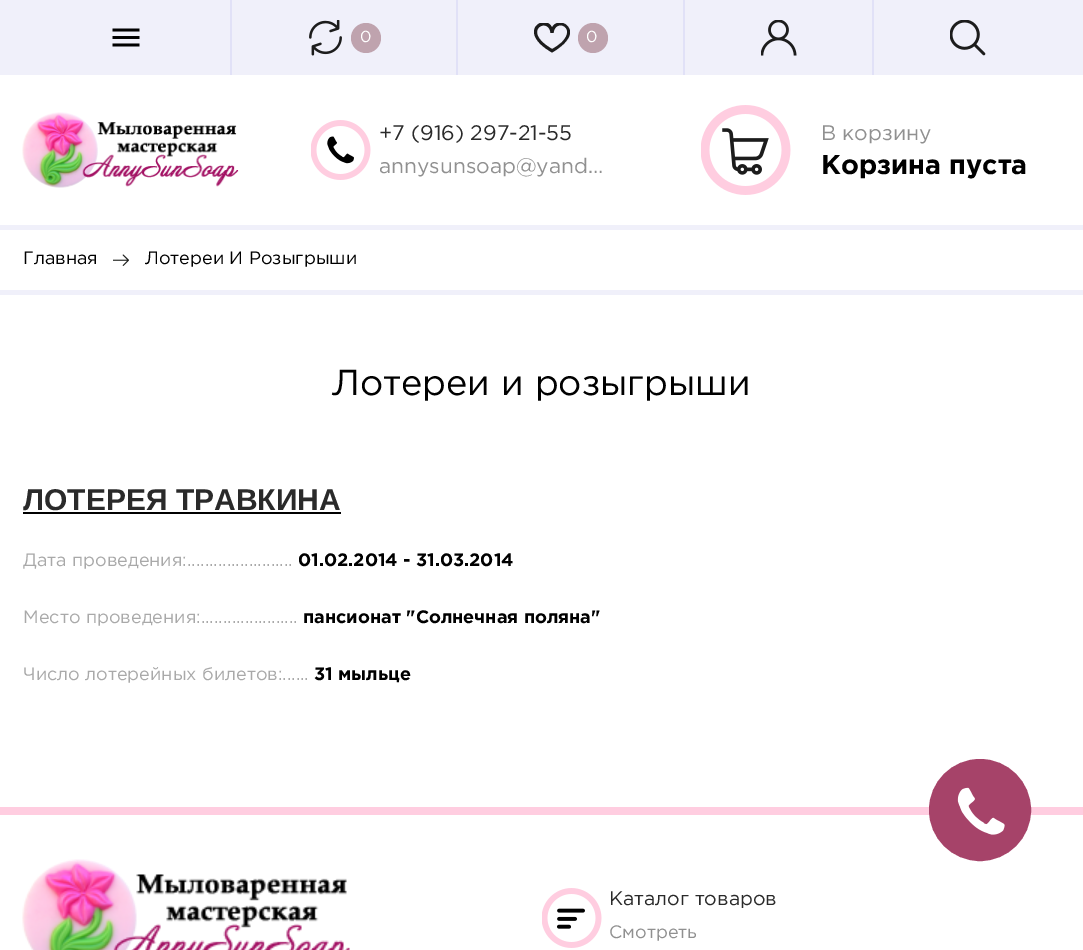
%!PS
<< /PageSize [1083 950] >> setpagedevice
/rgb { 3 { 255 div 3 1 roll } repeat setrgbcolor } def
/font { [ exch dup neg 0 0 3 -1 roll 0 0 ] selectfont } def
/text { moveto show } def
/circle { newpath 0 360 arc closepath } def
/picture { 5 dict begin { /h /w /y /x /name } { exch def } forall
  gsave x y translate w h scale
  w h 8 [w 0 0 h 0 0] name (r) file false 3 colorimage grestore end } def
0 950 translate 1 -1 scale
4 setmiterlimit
255 255 255 rgb
0 0 1083 950 rectfill
240 240 250 rgb
0 0 1083 75 rectfill
(img_01.rgb) 112 28 28 19 picture
225 225 247 rgb
230 0 2 75 rectfill
(img_02.rgb) 309 20 33 36 picture
191 163 174 rgb
366 38 15 circle fill
225 225 247 rgb
456 0 2 75 rectfill
gsave
534 23 36 30 rectclip
28 28 28 rgb
567 25.5 moveto -4.5 -4.5 -12.5 -3.5 -15 2 rcurveto -6.5 -14.5 -37 3.5 0 25 rcurveto 8 -4.5 25 -17 15 -27 rcurveto closepath 561.5 42.5 moveto -3 2.5 -6 5 -9.5 6.5 rcurveto -32 -18.5 -3 -33 -1.5 -16 rcurveto 3 0 rlineto 1.5 -15 24 -6 8 9.5 rcurveto closepath fill
grestore
191 163 174 rgb
593 38 15 circle fill
225 225 247 rgb
683 0 2 75 rectfill
(img_03.rgb) 761 20 36 36 picture
872 0 2 75 rectfill
(img_04.rgb) 950 20 36 36 picture
(img_05.rgb) 22 112 217 76 picture
(img_06.rgb) 311 120 60 60 picture
(img_07.rgb) 701 105 90 90 picture
240 240 250 rgb
0 225 1083 5 rectfill
0 290 1083 5 rectfill
(img_08.rgb) 113 254 16 12 picture
0 0 0 rgb
23 512 318 2 rectfill
255 205 224 rgb
0 807 1083 8 rectfill
166 67 105 rgb
980 810 49.5 circle gsave fill grestore
3 setlinewidth
stroke
(img_09.rgb) 957 787 48 48 picture
(img_10.rgb) 22 859 328 91 picture
(img_11.rgb) 542 888 60 60 picture
/Gotham-Regular 16 font
255 255 255 rgb
(0) 360 42 text
(0) 586 42 text
/Gotham-Regular 21 font
42 42 42 rgb
(+7 \(916\) 297-21-55) 379 140 text
144 144 144 rgb
(annysunsoap@yand…) 379 173 text
(В корзину) 821 140 text
/Gotham-Bold 27 font
0 0 0 rgb
(Корзина пуста) 821 174 text
/Gotham-Regular 18 font
(Главная) 23 264 text
(Лотереи И Розыгрыши) 145 264 text
/Gotham-Regular 36 font
(Лотереи и розыгрыши) 332 395 text
gsave
23 459 1038 258 rectclip
/LiberationSans-Bold 30 font
42 42 42 rgb
(ЛОТЕРЕЯ ТРАВКИНА) 23 510 text
/Gotham-Regular 18 font
169 169 169 rgb
(Дата проведения:........................) 23 566 text
grestore
/Gotham-Bold 18 font
(01.02.2014 - 31.03.2014) 298 566 text
/Gotham-Regular 18 font
169 169 169 rgb
(Место проведения:......................) 23 623 text
/Gotham-Bold 18 font
0 0 0 rgb
(пансионат "Солнечная поляна") 303 623 text
/Gotham-Regular 18 font
169 169 169 rgb
(Число лотерейных билетов:......) 23 680 text
/Gotham-Bold 18 font
0 0 0 rgb
(31 мыльце) 314 680 text
/Gotham-Regular 19.5 font
42 42 42 rgb
(Каталог товаров) 609 905 text
/Gotham-Regular 18 font
144 144 144 rgb
(Смотреть) 609 938 text
showpage
